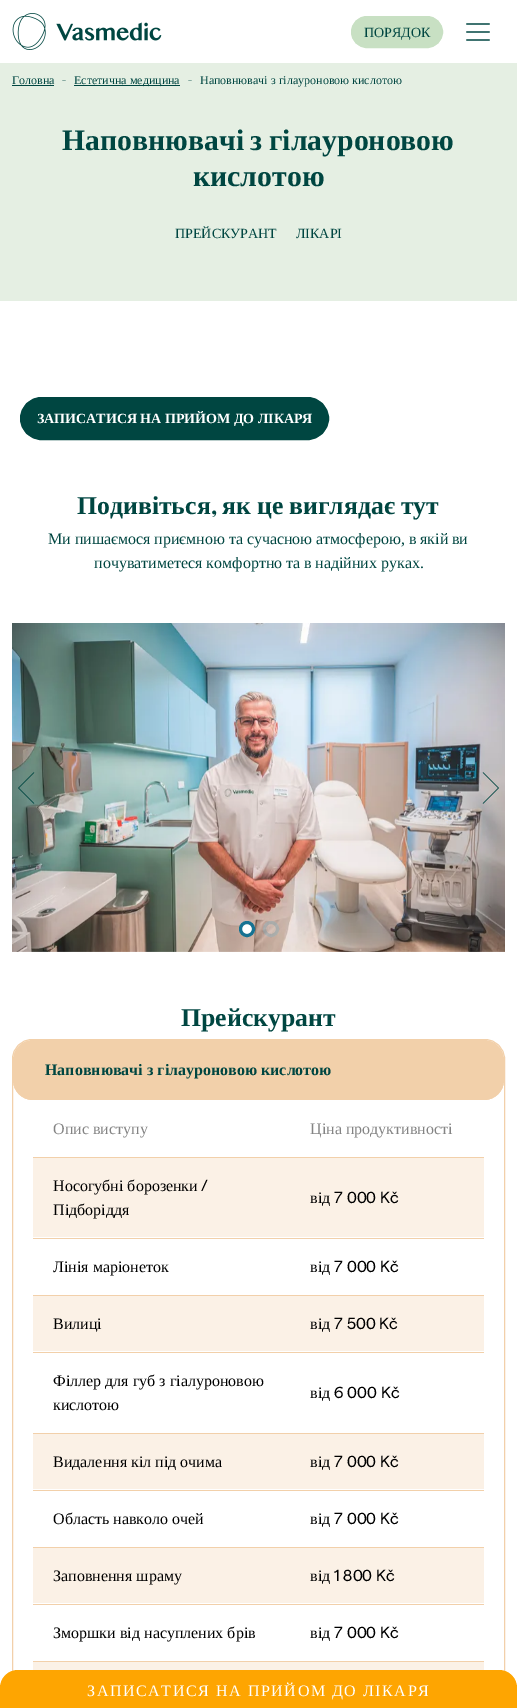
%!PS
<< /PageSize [517 1708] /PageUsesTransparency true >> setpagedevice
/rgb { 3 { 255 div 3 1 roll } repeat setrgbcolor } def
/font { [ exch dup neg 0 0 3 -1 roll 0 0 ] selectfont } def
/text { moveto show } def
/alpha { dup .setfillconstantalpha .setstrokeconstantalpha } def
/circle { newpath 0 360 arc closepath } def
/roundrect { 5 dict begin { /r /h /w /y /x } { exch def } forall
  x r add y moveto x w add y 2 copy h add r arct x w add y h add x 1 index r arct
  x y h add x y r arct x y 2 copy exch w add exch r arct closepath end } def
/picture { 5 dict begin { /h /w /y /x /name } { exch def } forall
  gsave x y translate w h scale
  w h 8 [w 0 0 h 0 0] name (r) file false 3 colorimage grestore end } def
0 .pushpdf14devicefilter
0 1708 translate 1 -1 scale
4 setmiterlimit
255 255 255 rgb
0 0 517 1708 rectfill
(img_01.rgb) 12 13 150 37 picture
200 224 195 rgb
351.5 16.5 91 31 15.5 roundrect gsave fill grestore
stroke
(img_02.rgb) 466 23 24 18 picture
229 239 227 rgb
0 63 517 238 rectfill
0 70 65 rgb
12 85 42 1 rectfill
74 85 106 1 rectfill
20.5 397.5 308 42 21 roundrect gsave fill grestore
stroke
(img_03.rgb) 12 623 493 329 picture
0.7 setlinewidth
34 772.5 moveto -15.5 15.5 rlineto 15.5 15.5 rlineto stroke
483 803.5 moveto 15.5 -15.5 rlineto -15.5 -15.5 rlineto stroke
255 255 255 rgb
247 929 6.5 circle gsave fill grestore
22 114 146 rgb
3 setlinewidth
stroke
0.2 alpha
255 255 255 rgb
271 929 8 circle fill
22 114 146 rgb
271 929 6.5 circle stroke
1 alpha
242 208 170 rgb
1 setlinewidth
12.5 1039.5 492 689 19.5 roundrect stroke
13 1040 491 60 20 roundrect fill
13 1079 moveto 0 1 rlineto 0 11 9 20 20 20 rcurveto 451 0 rlineto 11 0 20 -9 20 -20 rcurveto 0 -1 rlineto 0 11 -9 20 -20 20 rcurveto -451 0 rlineto -11 0 -20 -9 -20 -20 rcurveto closepath fill
251 241 230 rgb
33 1158 451 79 rectfill
242 208 170 rgb
33 1157 451 1 rectfill
33 1238 451 1 rectfill
251 241 230 rgb
33 1296 451 55 rectfill
242 208 170 rgb
33 1295 451 1 rectfill
33 1352 451 1 rectfill
251 241 230 rgb
33 1434 451 55 rectfill
242 208 170 rgb
33 1433 451 1 rectfill
33 1490 451 1 rectfill
251 241 230 rgb
33 1548 451 55 rectfill
242 208 170 rgb
33 1547 451 1 rectfill
33 1604 451 1 rectfill
251 241 230 rgb
33 1662 451 8 rectfill
242 208 170 rgb
33 1661 451 1 rectfill
254 165 1 rgb
18 1670 moveto 481 0 rlineto 10 0 18 8 18 18 rcurveto 0 20 rlineto -517 0 rlineto 0 -20 rlineto 0 -10 8 -18 18 -18 rcurveto closepath fill
/LiberationSerif-Regular 14 font
0 70 65 rgb
(ПОРЯДОК) 364 37 text
/LiberationSerif-Regular 12 font
(Головна) 12 84 text
/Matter-Light 12 font
57 112 106 rgb
(-) 62 84 text
/LiberationSerif-Regular 12 font
0 70 65 rgb
(Естетична медицина) 74 84 text
/Matter-Light 12 font
57 112 106 rgb
(-) 188 84 text
/LiberationSerif-Regular 12 font
0 70 65 rgb
(Наповнювачі з гілауроновою кислотою) 200 84 text
/LiberationSerif-Bold 29.75 font
62 150 moveto -1 0 32 (Наповнювачі з гілауроновою) widthshow
(кислотою) 193 186 text
/LiberationSerif-Regular 14 font
(ПРЕЙСКУРАНТ) 175 238 text
(ЛІКАРІ) 296 238 text
/LiberationSerif-Bold 14 font
255 255 255 rgb
(ЗАПИСАТИСЯ НА ПРИЙОМ ДО ЛІКАРЯ) 37 423 text
/LiberationSerif-Bold 25.75 font
0 70 65 rgb
(Подивіться) 77 514 text
/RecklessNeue-SemiBold 25.75 font
(,) 211 514 text
/LiberationSerif-Bold 25.75 font
222 514 moveto -0.5 0 32 (як це виглядає тут) widthshow
/LiberationSerif-Regular 16 font
48 544 moveto -0.25 0 32 (Ми пишаємося приємною та сучасною атмосферою, в якій ви) widthshow
94 568 moveto -0.25 0 32 (почуватиметеся комфортно та в надійних руках.) widthshow
/LiberationSerif-Bold 25.75 font
(Прейскурант) 181 1026 text
/LiberationSerif-Bold 16 font
(Наповнювачі з гілауроновою кислотою) 45 1075 text
/LiberationSerif-Regular 16 font
132 132 132 rgb
(Опис виступу) 53 1134 text
(Ціна продуктивності) 310 1134 text
0 0 0 rgb
(Носогубні борозенки) 53 1191 text
/Matter-Regular 16 font
(/) 201 1191 text
/LiberationSerif-Regular 16 font
(Підборіддя) 53 1215 text
(від) 310 1203 text
/Matter-Regular 16 font
(7 000 Kč) 334 1203 text
/LiberationSerif-Regular 16 font
(Лінія маріонеток) 53 1272 text
(від) 310 1272 text
/Matter-Regular 16 font
(7 000 Kč) 334 1272 text
/LiberationSerif-Regular 16 font
(Вилиці) 53 1329 text
(від) 310 1329 text
/Matter-Regular 16 font
(7 500 Kč) 334 1329 text
/LiberationSerif-Regular 16 font
(Філлер для губ з гіалуроновою) 53 1386 text
(кислотою) 53 1410 text
(від) 310 1398 text
/Matter-Regular 16 font
(6 000 Kč) 334 1398 text
/LiberationSerif-Regular 16 font
(Видалення кіл під очима) 53 1467 text
(від) 310 1467 text
/Matter-Regular 16 font
(7 000 Kč) 334 1467 text
/LiberationSerif-Regular 16 font
(Область навколо очей) 53 1524 text
(від) 310 1524 text
/Matter-Regular 16 font
(7 000 Kč) 334 1524 text
/LiberationSerif-Regular 16 font
(Заповнення шраму) 53 1581 text
(від) 310 1581 text
/Matter-Regular 16 font
(1 800 Kč) 334 1581 text
/LiberationSerif-Regular 16 font
(Зморшки від насуплених брів) 53 1638 text
(від) 310 1638 text
/Matter-Regular 16 font
(7 000 Kč) 334 1638 text
/LiberationSerif-Regular 16 font
255 255 255 rgb
87 1696 moveto -0.25 0 32 1.6 0 (ЗАПИСАТИСЯ НА ПРИЙОМ ДО ЛІКАРЯ) awidthshow
.poppdf14devicefilter showpage
